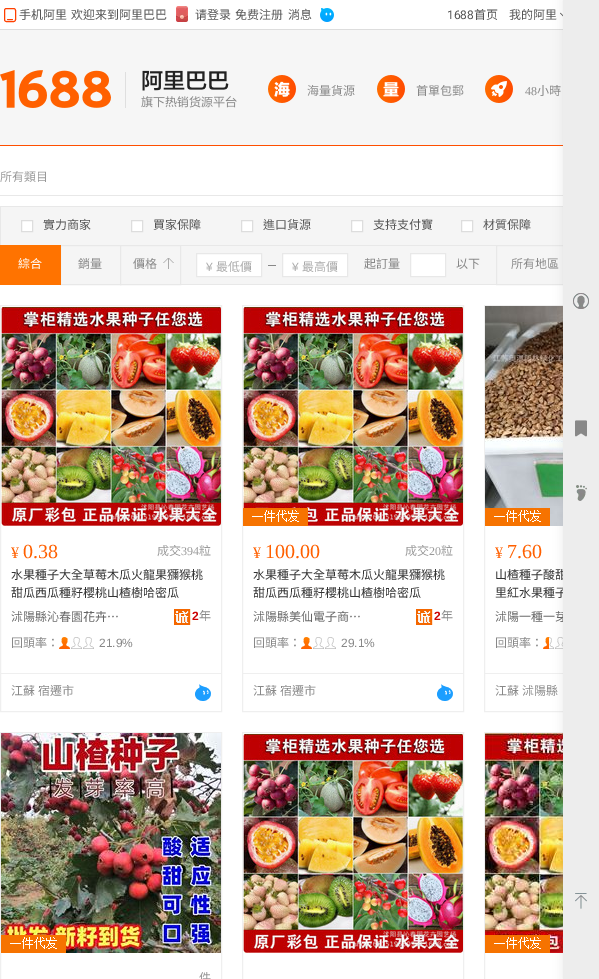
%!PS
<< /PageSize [599 979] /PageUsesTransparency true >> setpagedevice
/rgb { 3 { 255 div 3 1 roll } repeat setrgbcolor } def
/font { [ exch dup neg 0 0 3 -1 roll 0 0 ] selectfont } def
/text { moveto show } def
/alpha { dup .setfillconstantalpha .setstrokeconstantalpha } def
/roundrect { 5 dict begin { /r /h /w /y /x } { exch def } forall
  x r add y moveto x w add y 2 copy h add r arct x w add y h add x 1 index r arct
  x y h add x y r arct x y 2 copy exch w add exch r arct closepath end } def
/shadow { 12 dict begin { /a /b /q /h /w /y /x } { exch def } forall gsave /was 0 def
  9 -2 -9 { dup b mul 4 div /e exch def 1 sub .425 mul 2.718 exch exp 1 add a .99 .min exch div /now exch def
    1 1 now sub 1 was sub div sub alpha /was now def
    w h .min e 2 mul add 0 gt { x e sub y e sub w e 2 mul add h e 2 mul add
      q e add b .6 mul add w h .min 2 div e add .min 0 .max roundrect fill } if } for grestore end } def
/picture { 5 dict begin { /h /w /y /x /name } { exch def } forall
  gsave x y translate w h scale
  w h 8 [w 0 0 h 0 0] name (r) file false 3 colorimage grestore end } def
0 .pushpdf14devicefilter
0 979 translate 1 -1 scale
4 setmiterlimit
255 255 255 rgb
0 0 599 979 rectfill
221 221 221 rgb
0 29 563 1 rectfill
255 64 0 rgb
4.5 8.5 11 13 2 roundrect stroke
1 setlinecap
1 setlinejoin
7.5 19.5 moveto 5 0 rlineto stroke
(img_01.rgb) 176 6 12 16 picture
(img_02.rgb) 320 8 14 14 picture
(img_03.rgb) 560 12 3 5 picture
246 246 246 rgb
0 30 563 115 rectfill
255 79 0 rgb
0 145 563 1 rectfill
(img_04.rgb) 0 70 111 38 picture
223 223 223 rgb
125 72 1 36 rectfill
(img_05.rgb) 141 70 96 38 picture
(img_06.rgb) 268 75 28 28 picture
(img_07.rgb) 377 75 28 28 picture
(img_08.rgb) 485 75 28 28 picture
232 232 232 rgb
0 195 563 1 rectfill
245 245 245 rgb
1 207 562 38 rectfill
232 232 232 rgb
0 206 563 1 rectfill
245 245 245 rgb
497 246 66 38 rectfill
232 232 232 rgb
0 setlinecap
0 setlinejoin
496.5 245.5 90 39 rectstroke
239 239 239 rgb
484.5 305.5 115 406 rectstroke
(img_18.rgb) 485 306 78 220 picture
(img_19.rgb) 485 508 65 18 picture
(img_20.rgb) 549 637 14 12 picture
(img_21.rgb) 543 637 6 12 picture
485 673 78 1 rectfill
484.5 732.5 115 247 rectstroke
(img_23.rgb) 485 733 78 220 picture
(img_19.rgb) 485 935 65 18 picture
153 153 153 rgb
563 0 36 979 0 5 0.2 shadow
232 232 232 rgb
0 206 1 39 rectfill
255 255 255 rgb
21.5 220.5 moveto 11 0 rlineto 0 11 rlineto -11 0 rlineto closepath gsave fill grestore
221 221 221 rgb
stroke
255 255 255 rgb
131.5 220.5 moveto 11 0 rlineto 0 11 rlineto -11 0 rlineto closepath gsave fill grestore
221 221 221 rgb
stroke
255 255 255 rgb
241.5 220.5 moveto 11 0 rlineto 0 11 rlineto -11 0 rlineto closepath gsave fill grestore
221 221 221 rgb
stroke
255 255 255 rgb
351.5 220.5 moveto 11 0 rlineto 0 11 rlineto -11 0 rlineto closepath gsave fill grestore
221 221 221 rgb
stroke
255 255 255 rgb
461.5 220.5 moveto 11 0 rlineto 0 11 rlineto -11 0 rlineto closepath gsave fill grestore
221 221 221 rgb
stroke
245 245 245 rgb
181 246 315 38 rectfill
232 232 232 rgb
181 245 315 1 rectfill
181 284 315 1 rectfill
245 245 245 rgb
60.5 245.5 moveto 60 0 rlineto 0 39 rlineto -60 0 rlineto closepath gsave fill grestore
232 232 232 rgb
stroke
255 115 0 rgb
0 245 61 40 rectfill
245 245 245 rgb
120.5 245.5 moveto 60 0 rlineto 0 39 rlineto -60 0 rlineto closepath gsave fill grestore
232 232 232 rgb
stroke
170 170 170 rgb
174 263 moveto -11 0 rlineto 5 -5 rlineto 1 0 rlineto closepath fill
245 245 245 rgb
174 264 moveto -11 0 rlineto 5 -5 rlineto 1 0 rlineto closepath fill
170 170 170 rgb
168 258 1 11 rectfill
255 255 255 rgb
196.5 253.5 moveto 65 0 rlineto 0 23 rlineto -65 0 rlineto closepath gsave fill grestore
232 232 232 rgb
stroke
136 136 136 rgb
268 265 8 1 rectfill
255 255 255 rgb
282.5 253.5 moveto 65 0 rlineto 0 23 rlineto -65 0 rlineto closepath gsave fill grestore
232 232 232 rgb
stroke
255 255 255 rgb
410.5 253.5 moveto 35 0 rlineto 0 23 rlineto -35 0 rlineto closepath gsave fill grestore
232 232 232 rgb
stroke
239 239 239 rgb
0.5 305.5 221 406 rectstroke
(img_13.rgb) 1 307 220 219 picture
(img_14.rgb) 174 609 17 16 picture
(img_15.rgb) 70 637 24 12 picture
(img_16.rgb) 59 637 11 12 picture
1 673 220 1 rectfill
(img_17.rgb) 195 684 16 17 picture
0.5 732.5 221 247 rectstroke
(img_22.rgb) 1 733 220 220 picture
(img_19.rgb) 1 935 65 18 picture
242.5 732.5 221 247 rectstroke
(img_13.rgb) 243 734 220 219 picture
242.5 305.5 221 406 rectstroke
(img_24.rgb) 243 307 220 219 picture
(img_19.rgb) 243 508 65 18 picture
(img_14.rgb) 416 609 17 16 picture
(img_15.rgb) 312 637 24 12 picture
(img_16.rgb) 301 637 11 12 picture
243 673 220 1 rectfill
(img_17.rgb) 437 684 16 17 picture
/NotoSansCJKTC-Regular 12 font
85 85 85 rgb
(手机阿里) 19 19 text
(欢迎来到阿里巴巴) 71 19 text
(请登录) 195 19 text
(免费注册) 235 19 text
(消息) 288 19 text
/Roboto-Regular 12 font
(1688) 447 19 text
/NotoSansCJKTC-Regular 12 font
(首页) 474 19 text
(我的阿里) 509 19 text
136 136 136 rgb
(海量貨源) 307 95 text
(首單包郵) 416 95 text
/LiberationSerif-Regular 12 font
(48) 525 95 text
/NotoSansCJKTC-Regular 12 font
(小時) 537 95 text
153 153 153 rgb
(所有類目) 0 181 text
85 85 85 rgb
(實力商家) 43 229 text
(買家保障) 153 229 text
(進口貨源) 263 229 text
(支持支付寶) 373 229 text
(材質保障) 483 229 text
255 255 255 rgb
(綜合) 18 268 text
136 136 136 rgb
(銷量) 78 268 text
(價格) 133 268 text
/LiberationSans-Regular 12 font
170 170 170 rgb
(¥) 206 271 text
/NotoSansCJKTC-Regular 12 font
(最低價) 216 271 text
/LiberationSans-Regular 12 font
(¥) 292 271 text
/NotoSansCJKTC-Regular 12 font
(最高價) 302 271 text
136 136 136 rgb
(起訂量) 364 268 text
(以下) 456 268 text
(所有地區) 511 268 text
/LiberationSerif-Regular 16 font
255 96 0 rgb
(¥) 11 558 text
/LiberationSerif-Regular 20 font
(0.38) 23 558 text
/NotoSansCJKTC-Regular 12 font
153 153 153 rgb
(成交) 157 555 text
/LiberationSerif-Regular 12 font
(394) 181 555 text
/NotoSansCJKTC-Regular 12 font
(粒) 199 555 text
51 51 51 rgb
(水果種子大全草莓木瓜火龍果獼猴桃) 11 579 text
(甜瓜西瓜種籽櫻桃山楂樹哈密瓜) 11 597 text
102 102 102 rgb
(沭陽縣沁春園花卉…) 11 621 text
/LiberationSans-Bold 12 font
204 0 0 rgb
(2) 192 620 text
/NotoSansCJKTC-Regular 12 font
136 136 136 rgb
(年) 199 620 text
(回頭率：) 11 647 text
/LiberationSans-Regular 12 font
(21.9%) 99 647 text
/NotoSansCJKTC-Regular 12 font
(江蘇 宿遷市) 11 695 text
/LiberationSerif-Regular 16 font
255 96 0 rgb
(¥) 495 558 text
/LiberationSerif-Regular 20 font
(7.60) 507 558 text
/NotoSansCJKTC-Regular 12 font
51 51 51 rgb
(山楂種子酸甜) 495 579 text
(里紅水果種子) 495 597 text
102 102 102 rgb
(沭陽一種一芽) 495 621 text
237 237 237 rgb
563 0 36 979 rectfill
(img_12.rgb) 575 893 12 16 picture
(img_11.rgb) 576 485 11 16 picture
(img_10.rgb) 575 420 12 17 picture
(img_09.rgb) 573 293 16 16 picture
136 136 136 rgb
(回頭率：) 495 647 text
(江蘇 沭陽縣) 495 695 text
153 153 153 rgb
(件) 199 982 text
/LiberationSerif-Regular 16 font
255 96 0 rgb
(¥) 253 558 text
/LiberationSerif-Regular 20 font
(100.00) 265 558 text
/NotoSansCJKTC-Regular 12 font
153 153 153 rgb
(成交) 405 555 text
/LiberationSerif-Regular 12 font
(20) 429 555 text
/NotoSansCJKTC-Regular 12 font
(粒) 441 555 text
51 51 51 rgb
(水果種子大全草莓木瓜火龍果獼猴桃) 253 579 text
(甜瓜西瓜種籽櫻桃山楂樹哈密瓜) 253 597 text
102 102 102 rgb
(沭陽縣美仙電子商…) 253 621 text
/LiberationSans-Bold 12 font
204 0 0 rgb
(2) 434 620 text
/NotoSansCJKTC-Regular 12 font
136 136 136 rgb
(年) 441 620 text
(回頭率：) 253 647 text
/LiberationSans-Regular 12 font
(29.1%) 341 647 text
/NotoSansCJKTC-Regular 12 font
(江蘇 宿遷市) 253 695 text
.poppdf14devicefilter showpage
